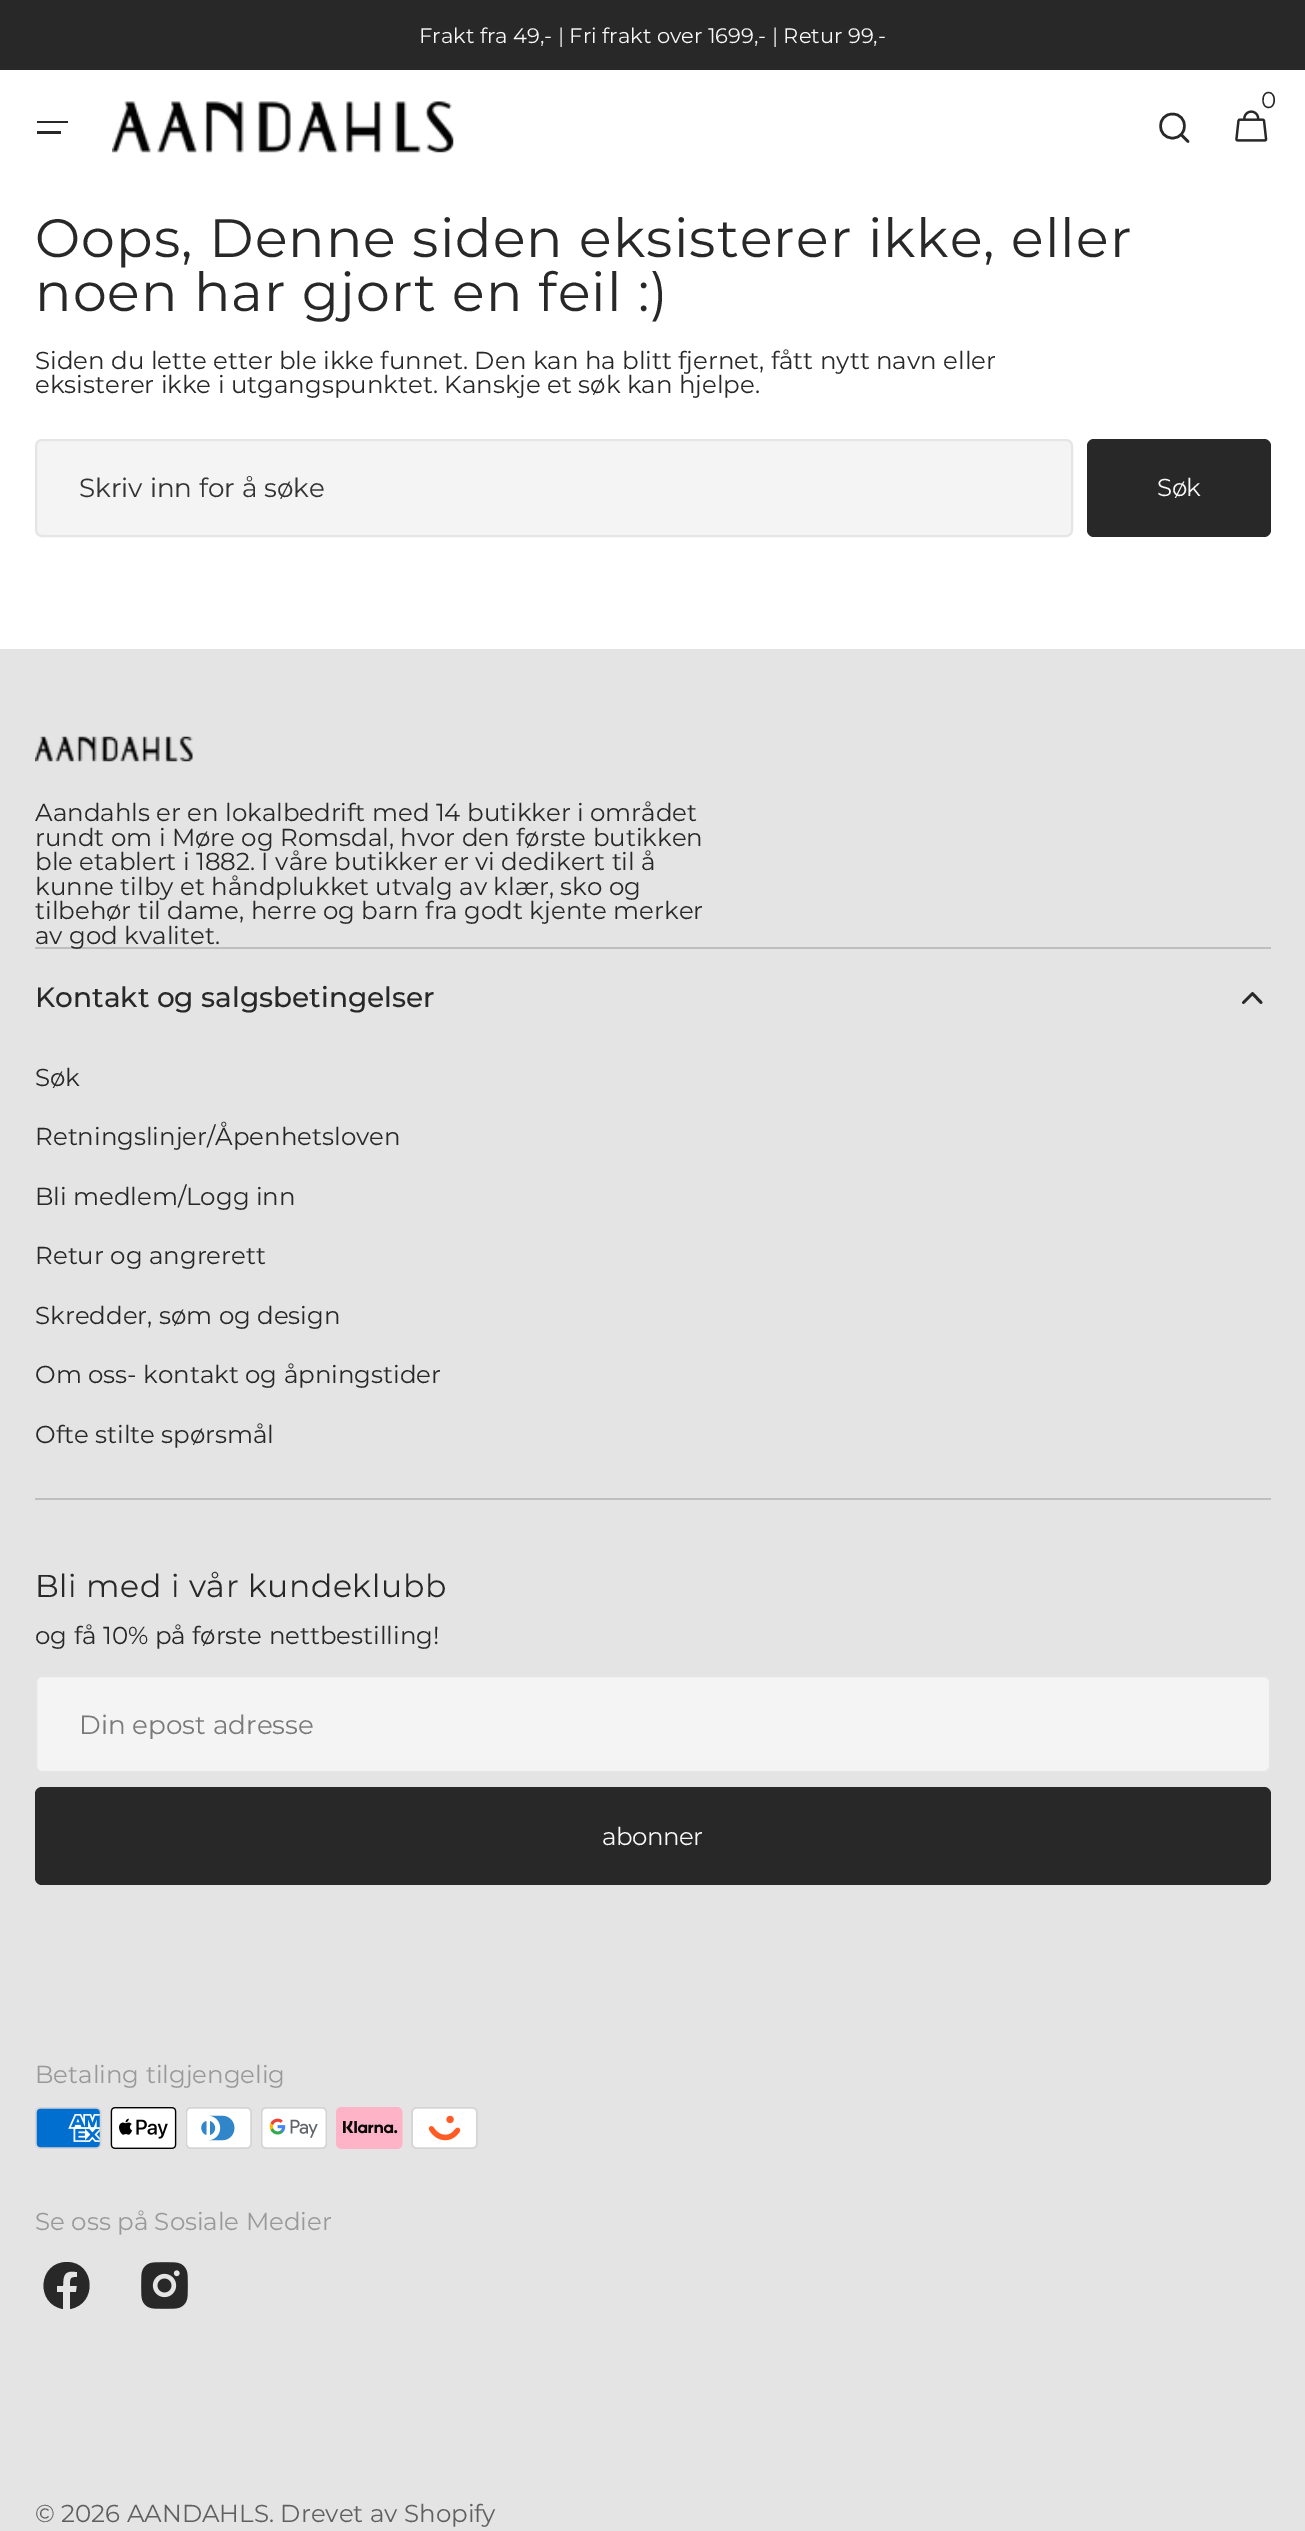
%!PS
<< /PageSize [1305 2531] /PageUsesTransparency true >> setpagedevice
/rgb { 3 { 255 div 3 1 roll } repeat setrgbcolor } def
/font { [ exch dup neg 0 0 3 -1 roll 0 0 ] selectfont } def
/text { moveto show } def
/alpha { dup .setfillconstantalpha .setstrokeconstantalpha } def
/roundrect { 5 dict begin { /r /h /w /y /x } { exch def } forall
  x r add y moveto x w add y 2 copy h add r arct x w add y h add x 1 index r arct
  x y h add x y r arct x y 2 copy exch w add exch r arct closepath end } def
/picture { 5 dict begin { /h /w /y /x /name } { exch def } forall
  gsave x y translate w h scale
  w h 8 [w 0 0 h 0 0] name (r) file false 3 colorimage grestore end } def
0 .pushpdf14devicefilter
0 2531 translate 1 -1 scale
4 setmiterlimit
255 255 255 rgb
0 0 1305 2531 rectfill
40 40 40 rgb
0 0 1305 70 rectfill
37 121 31 2 rectfill
37 131 24 3 rectfill
(img_01.rgb) 112 101 342 52 picture
(img_02.rgb) 1235 110 33 32 picture
2.5 setlinewidth
1 setlinecap
1 setlinejoin
1172.5 138 moveto 16 0 16 -24 0 -24 rcurveto -16 0 -16 24 0 24 rcurveto closepath 1181 134.5 moveto 7 7 rlineto stroke
244 244 244 rgb
36 440 1036 96 6 roundrect gsave fill grestore
229 229 229 rgb
2 setlinewidth
0 setlinecap
0 setlinejoin
stroke
40 40 40 rgb
1087 439 184 98 7 roundrect fill
228 228 228 rgb
0 649 1305 1882 rectfill
(img_03.rgb) 35 736 158 26 picture
190 190 190 rgb
35 1498 1236 2 rectfill
40 40 40 rgb
2.8 setlinewidth
1 setlinecap
1 setlinejoin
1243.5 1002.5 moveto 9 -9 rlineto 8.5 9 rlineto stroke
244 244 244 rgb
36 1676 1234 96 6 roundrect gsave fill grestore
229 229 229 rgb
2 setlinewidth
0 setlinecap
0 setlinejoin
stroke
40 40 40 rgb
35 1787 1236 98 7 roundrect fill
(img_04.rgb) 35 2107 67 42 picture
(img_05.rgb) 110 2107 67 42 picture
(img_06.rgb) 186 2107 66 42 picture
(img_07.rgb) 261 2107 66 42 picture
(img_08.rgb) 336 2107 67 42 picture
(img_09.rgb) 411 2107 67 42 picture
67 2262 moveto -29 0 -32 42 -4 47 rcurveto 0 -17 rlineto -6 0 rlineto 0 -6 rlineto 6 0 rlineto 0 -12 2 -16 14 -14 rcurveto 0 5 rlineto -7 0 -7 2 -7 9 rcurveto 7 0 rlineto -1 6 rlineto -6 0 rlineto 0 17 rlineto 28 -5 25 -47 -3 -47 rcurveto closepath fill
(img_10.rgb) 141 2262 47 47 picture
/Montserrat-Regular 21 font
249 249 249 rgb
(Frakt fra 49,- | Fri frakt over 1699,- | Retur 99,-) 419 43 text
/Montserrat-Regular 23 font
40 40 40 rgb
(0) 1261 108 text
/Montserrat-Regular 53.9 font
35 257 moveto 1.1 0 (Oops, Denne siden eksisterer ikke, eller) ashow
35 311 moveto 1.1 0 (noen har gjort en feil :\)) ashow
/Montserrat-Regular 24.5 font
(Siden du lette etter ble ikke funnet. Den kan ha blitt fjernet, fått nytt navn eller) 35 369 text
(eksisterer ikke i utgangspunktet. Kanskje et søk kan hjelpe.) 35 393 text
/Montserrat-Regular 26.25 font
51 51 51 rgb
(Skriv inn for å søke) 79 497 text
/Montserrat-Regular 24.5 font
249 249 249 rgb
1157 496 moveto -0.5 0 (Søk) ashow
40 40 40 rgb
(Aandahls er en lokalbedrift med 14 butikker i området) 35 821 text
(rundt om i Møre og Romsdal, hvor den første butikken) 35 846 text
(ble etablert i 1882. I våre butikker er vi dedikert til å) 35 870 text
(kunne tilby et håndplukket utvalg av klær, sko og) 35 895 text
(tilbehør til dame, herre og barn fra godt kjente merker) 35 919 text
(av god kvalitet.) 35 944 text
0.2 alpha
35 947 1236 2 rectfill
/Montserrat-Medium 28 font
1 alpha
(Kontakt og salgsbetingelser) 35 1007 text
/Montserrat-Regular 24.5 font
(Søk) 35 1086 text
(Retningslinjer/Åpenhetsloven) 35 1145 text
(Bli medlem/Logg inn) 35 1205 text
(Retur og angrerett) 35 1264 text
(Skredder, søm og design) 35 1324 text
(Om oss- kontakt og åpningstider) 35 1383 text
(Ofte stilte spørsmål) 35 1443 text
/Montserrat-Regular 31.5 font
35 1597 moveto 0.6 0 (Bli med i vår kundeklubb) ashow
/Montserrat-Regular 24.5 font
(og få 10% på første nettbestilling!) 35 1644 text
/Montserrat-Regular 26.25 font
122 122 122 rgb
(Din epost adresse) 79 1734 text
/Montserrat-Regular 24.5 font
249 249 249 rgb
602 1845 moveto -0.5 0 (abonner) ashow
153 153 153 rgb
(Betaling tilgjengelig) 35 2083 text
(Se oss på Sosiale Medier) 35 2230 text
96 96 96 rgb
(© 2026 AANDAHLS. Drevet av Shopify) 35 2522 text
.poppdf14devicefilter showpage
